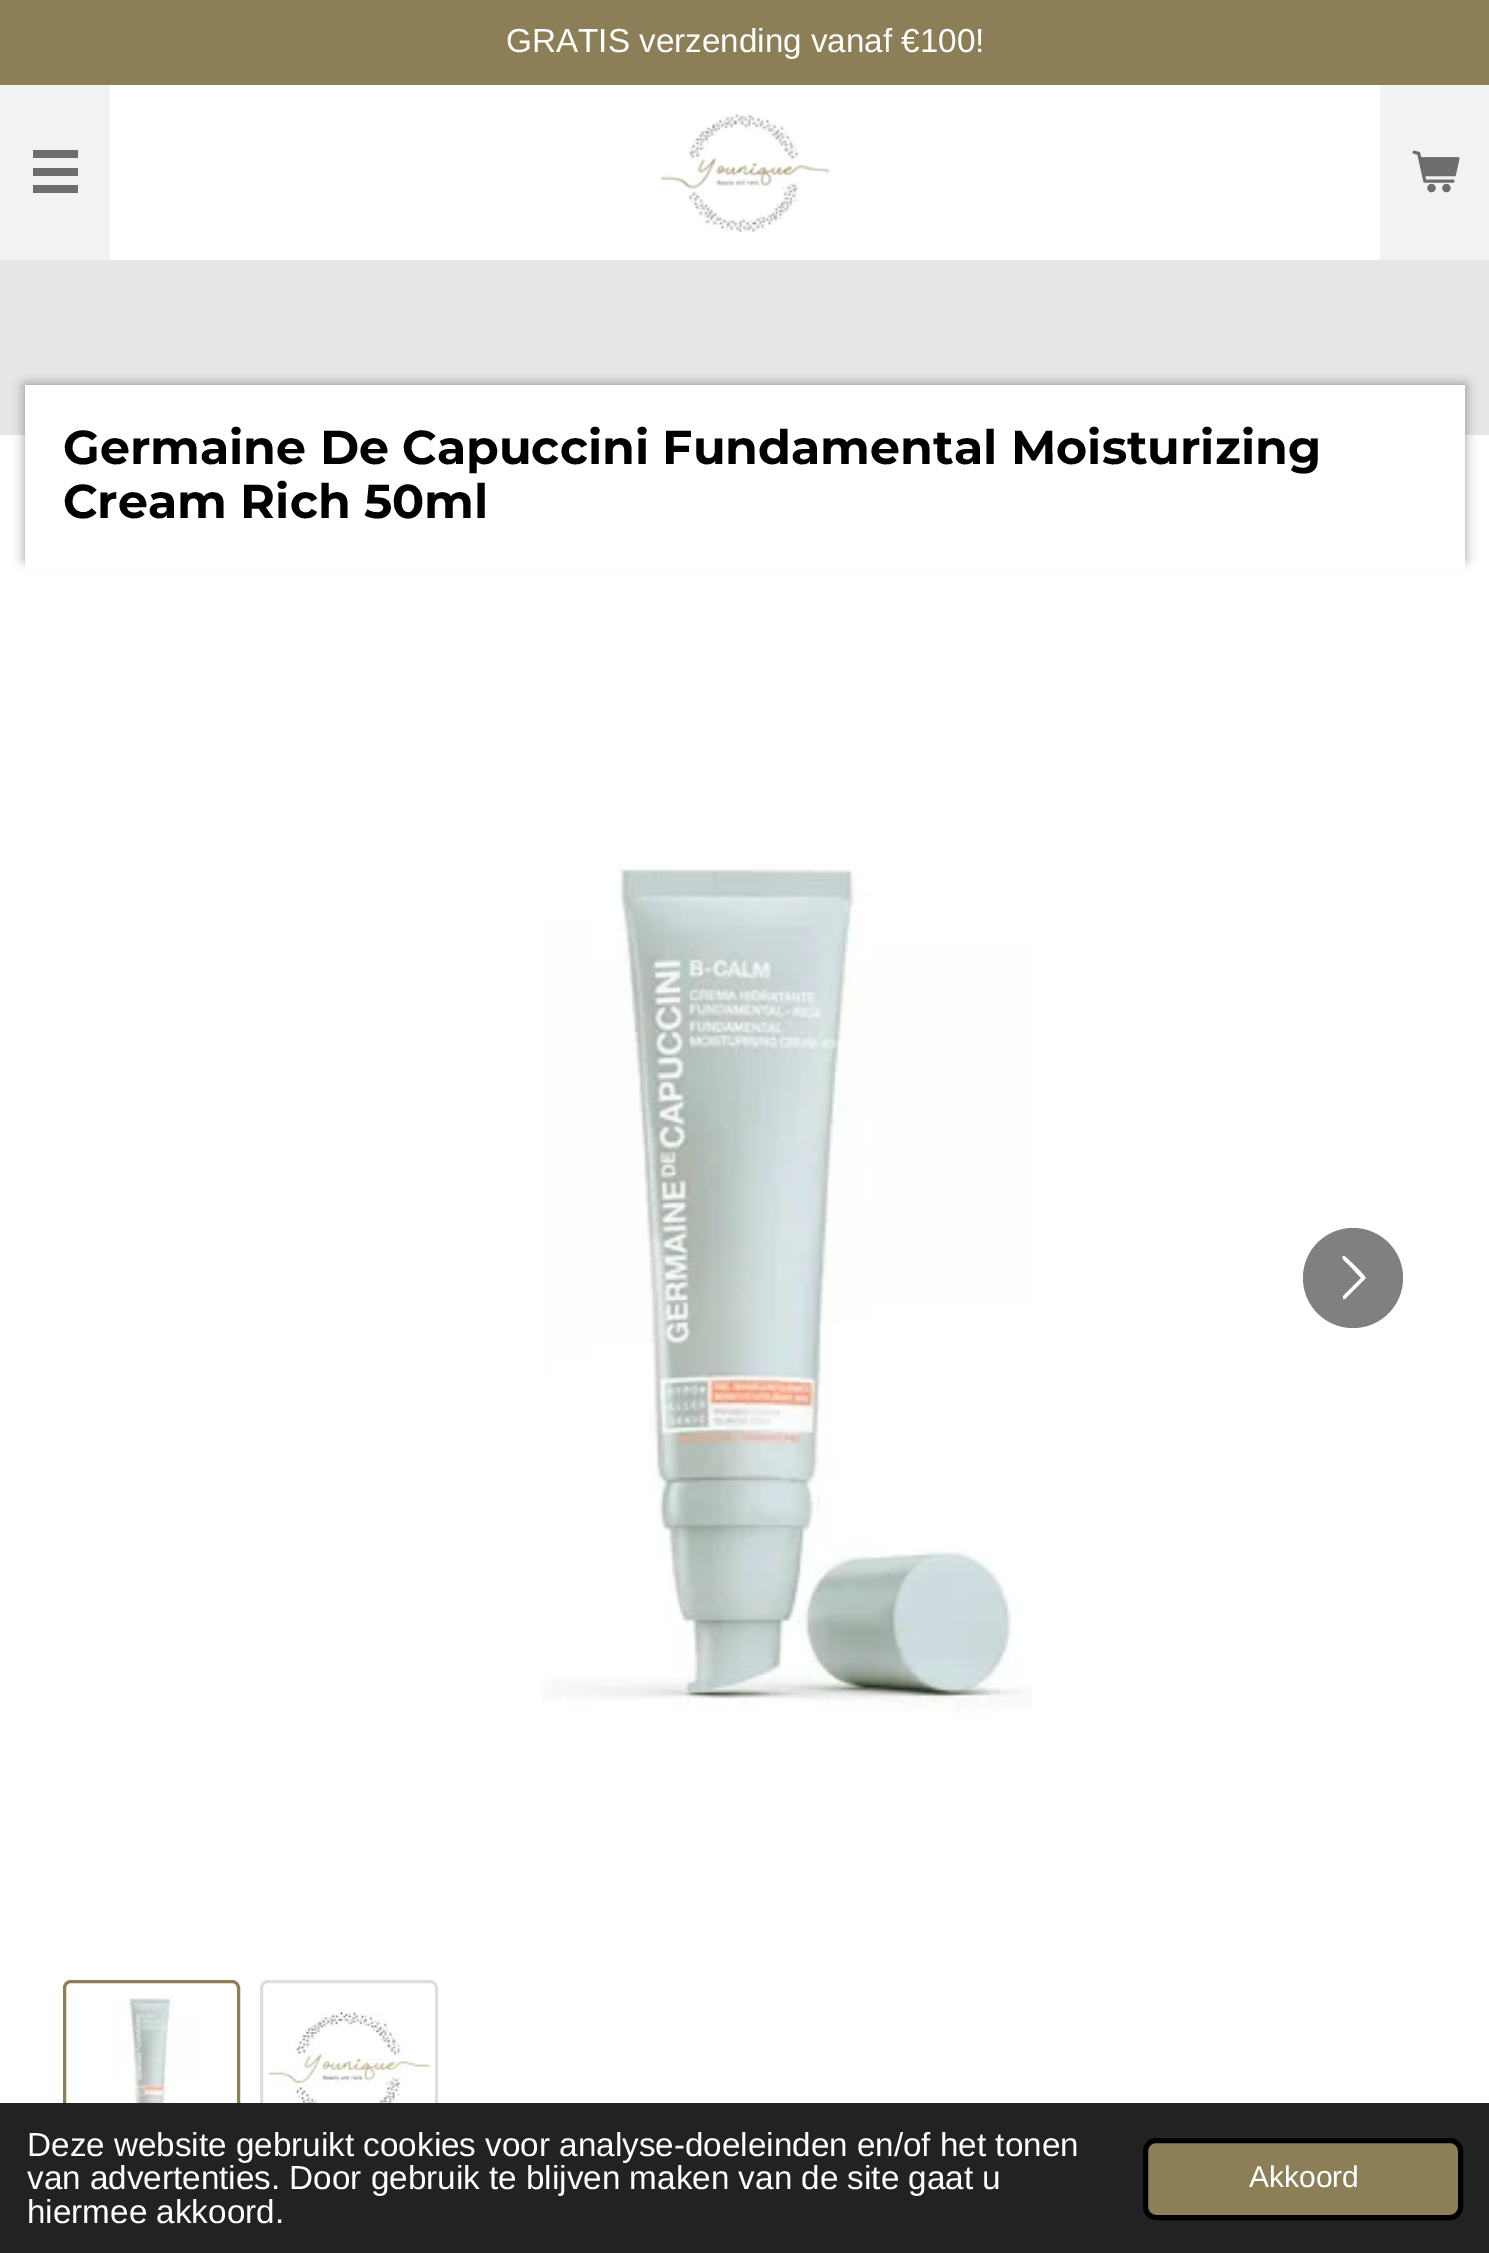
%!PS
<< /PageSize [1489 2253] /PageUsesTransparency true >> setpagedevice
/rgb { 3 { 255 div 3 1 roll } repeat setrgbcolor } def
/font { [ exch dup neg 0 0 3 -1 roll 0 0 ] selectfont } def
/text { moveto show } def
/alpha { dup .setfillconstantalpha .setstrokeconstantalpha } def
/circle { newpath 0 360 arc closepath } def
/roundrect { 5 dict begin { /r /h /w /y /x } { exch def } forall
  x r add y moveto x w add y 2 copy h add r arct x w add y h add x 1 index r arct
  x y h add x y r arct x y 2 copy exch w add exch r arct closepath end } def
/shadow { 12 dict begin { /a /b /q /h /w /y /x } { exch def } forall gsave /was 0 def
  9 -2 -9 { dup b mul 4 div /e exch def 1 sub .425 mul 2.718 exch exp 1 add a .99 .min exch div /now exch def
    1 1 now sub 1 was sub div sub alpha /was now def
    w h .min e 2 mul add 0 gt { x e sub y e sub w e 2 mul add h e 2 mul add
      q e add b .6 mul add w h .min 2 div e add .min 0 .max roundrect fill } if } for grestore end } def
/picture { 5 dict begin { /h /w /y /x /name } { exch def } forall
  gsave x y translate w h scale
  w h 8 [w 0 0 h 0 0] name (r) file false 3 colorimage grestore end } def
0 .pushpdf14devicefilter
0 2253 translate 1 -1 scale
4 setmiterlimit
255 255 255 rgb
0 0 1489 2253 rectfill
140 127 88 rgb
0 0 1489 85 rectfill
242 242 242 rgb
0 85 110 175 rectfill
109 109 109 rgb
33 168 45 8 rectfill
33 150 45 8 rectfill
33 185 45 8 rectfill
(img_01.rgb) 660 113 170 119 picture
242 242 242 rgb
1380 85 109 175 rectfill
(img_02.rgb) 1412 150 48 43 picture
230 230 230 rgb
0 260 1489 175 rectfill
0 0 0 rgb
25 385 1440 175 0 6 0.4 shadow
255 255 255 rgb
25 385 1440 187 rectfill
(img_03.rgb) 541 862 491 852 picture
128 128 128 rgb
1353 1278 50 circle fill
255 255 255 rgb
1343 1296 moveto 18 -18 rlineto -12 -13 rlineto -1 -1 -10 -8 -5 -9 rcurveto 1 0 20 18 21 21 rcurveto 1 1 rlineto -17 17 rlineto -1 0 -5 7 -6 3 rcurveto closepath fill
140 127 88 rgb
3 setlinewidth
64.5 1981.5 174 175 6.5 roundrect stroke
(img_04.rgb) 115 1995 85 108 picture
222 222 222 rgb
261.5 1981.5 175 175 6.5 roundrect stroke
(img_05.rgb) 267 2012 163 91 picture
34 34 34 rgb
0 2103 1489 150 rectfill
140 127 88 rgb
1145.5 2140.5 315 77 10.5 roundrect gsave fill grestore
0 0 0 rgb
5 setlinewidth
stroke
/LiberationSans-Regular 33.25 font
255 255 255 rgb
(GRATIS verzending vanaf €100!) 506 52 text
/Montserrat-Bold 47.5 font
0 0 0 rgb
(Germaine De Capuccini Fundamental Moisturizing) 63 464 text
(Cream Rich 50ml) 63 518 text
/LiberationSans-Regular 33.25 font
255 255 255 rgb
(Deze website gebruikt cookies voor analyse-doeleinden en/of het tonen) 27 2156 text
(van advertenties. Door gebruik te blijven maken van de site gaat u) 27 2189 text
(hiermee akkoord.) 27 2223 text
/LiberationSans-Regular 30 font
(Akkoord) 1249 2187 text
.poppdf14devicefilter showpage
